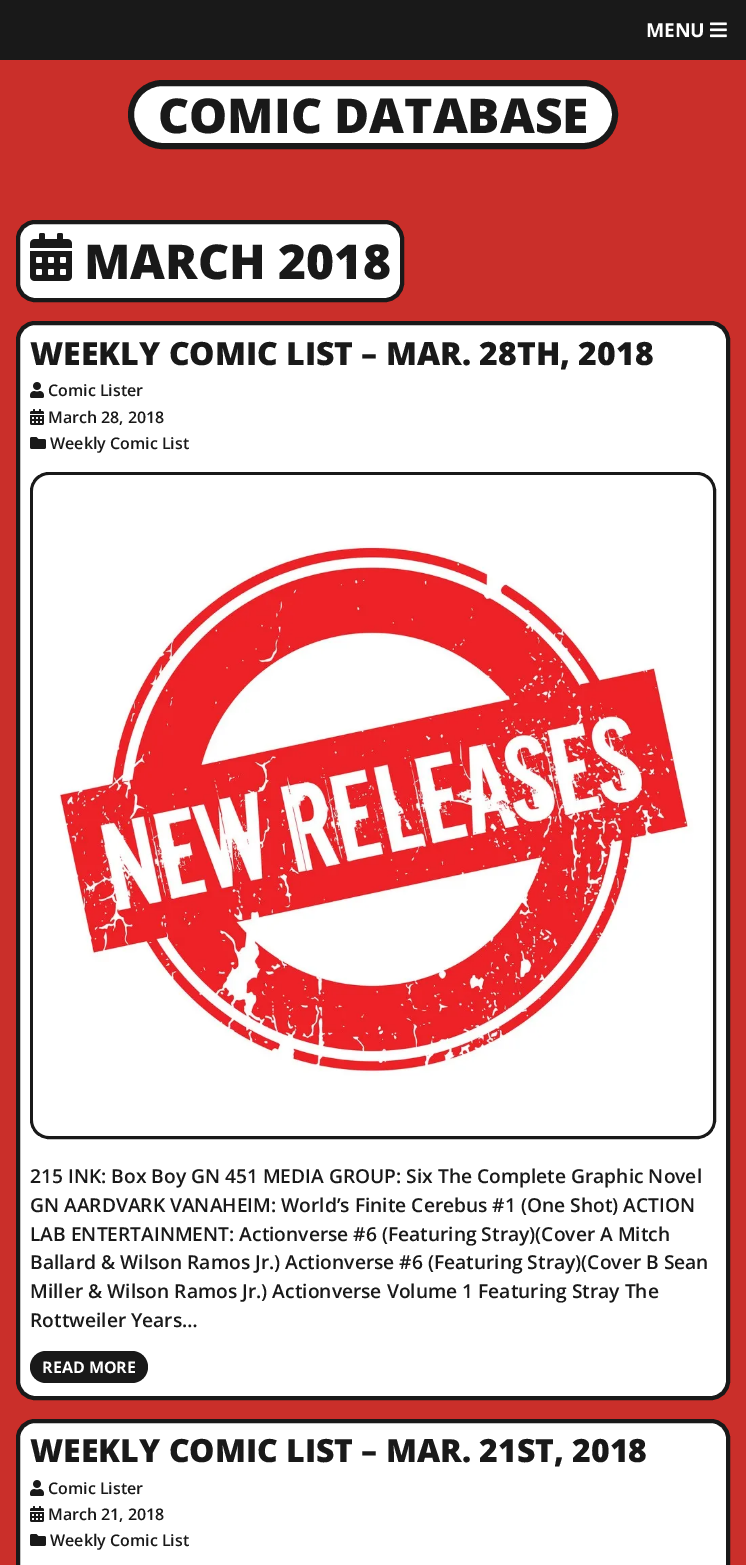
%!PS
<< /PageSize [746 1565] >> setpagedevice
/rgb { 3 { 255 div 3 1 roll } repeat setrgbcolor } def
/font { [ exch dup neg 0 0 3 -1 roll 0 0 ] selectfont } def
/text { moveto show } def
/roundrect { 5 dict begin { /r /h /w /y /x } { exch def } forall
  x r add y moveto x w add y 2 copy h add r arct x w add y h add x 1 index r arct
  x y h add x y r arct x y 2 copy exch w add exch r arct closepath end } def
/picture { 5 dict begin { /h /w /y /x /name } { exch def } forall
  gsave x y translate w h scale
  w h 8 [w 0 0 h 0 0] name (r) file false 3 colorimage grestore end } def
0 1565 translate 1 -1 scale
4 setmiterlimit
202 47 42 rgb
0 0 746 1565 rectfill
25 25 25 rgb
0 0 746 60 rectfill
(img_01.rgb) 710 22 17 16 picture
255 255 255 rgb
131 83 484 63 31.5 roundrect gsave fill grestore
25 25 25 rgb
6 setlinewidth
stroke
255 255 255 rgb
18 222 384 78 17 roundrect gsave fill grestore
25 25 25 rgb
4 setlinewidth
stroke
(img_02.rgb) 30 233 42 48 picture
255 255 255 rgb
18 323 710 1075 17 roundrect gsave fill grestore
25 25 25 rgb
stroke
(img_03.rgb) 30 382 14 16 picture
(img_04.rgb) 30 409 14 16 picture
(img_05.rgb) 30 437 16 12 picture
31.5 473.5 683 664 17.5 roundrect gsave fill grestore
3 setlinewidth
stroke
(img_06.rgb) 33 475 680 661 picture
30 1351 118 32 16 roundrect fill
255 255 255 rgb
18 1421 710 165 17 roundrect gsave fill grestore
25 25 25 rgb
4 setlinewidth
stroke
(img_03.rgb) 30 1480 14 16 picture
(img_04.rgb) 30 1506 14 16 picture
(img_05.rgb) 30 1534 16 12 picture
/OpenSans-Bold 19.2 font
255 255 255 rgb
(MENU) 646 37 text
/OpenSans-ExtraBold 48 font
25 25 25 rgb
(COMIC DATABASE) 158 133 text
(MARCH 2018) 84 279 text
/OpenSans-ExtraBold 32 font
(WEEKLY COMIC LIST – MAR. 28TH, 2018) 30 365 text
/OpenSans-SemiBold 16 font
(Comic Lister) 48 396 text
(March 28, 2018) 48 423 text
(Weekly Comic List) 50 449 text
/OpenSans-SemiBold 19.2 font
(215 INK: Box Boy GN 451 MEDIA GROUP: Six The Complete Graphic Novel) 30 1183 text
(GN AARDVARK VANAHEIM: World’s Finite Cerebus #1 \(One Shot\) ACTION) 30 1212 text
(LAB ENTERTAINMENT: Actionverse #6 \(Featuring Stray\)\(Cover A Mitch) 30 1241 text
(Ballard & Wilson Ramos Jr.\) Actionverse #6 \(Featuring Stray\)\(Cover B Sean) 30 1269 text
(Miller & Wilson Ramos Jr.\) Actionverse Volume 1 Featuring Stray The) 30 1298 text
(Rottweiler Years…) 30 1327 text
/OpenSans-Bold 16 font
255 255 255 rgb
(READ MORE) 42 1373 text
/OpenSans-ExtraBold 32 font
25 25 25 rgb
(WEEKLY COMIC LIST – MAR. 21ST, 2018) 30 1462 text
/OpenSans-SemiBold 16 font
(Comic Lister) 48 1494 text
(March 21, 2018) 48 1520 text
(Weekly Comic List) 50 1546 text
showpage
